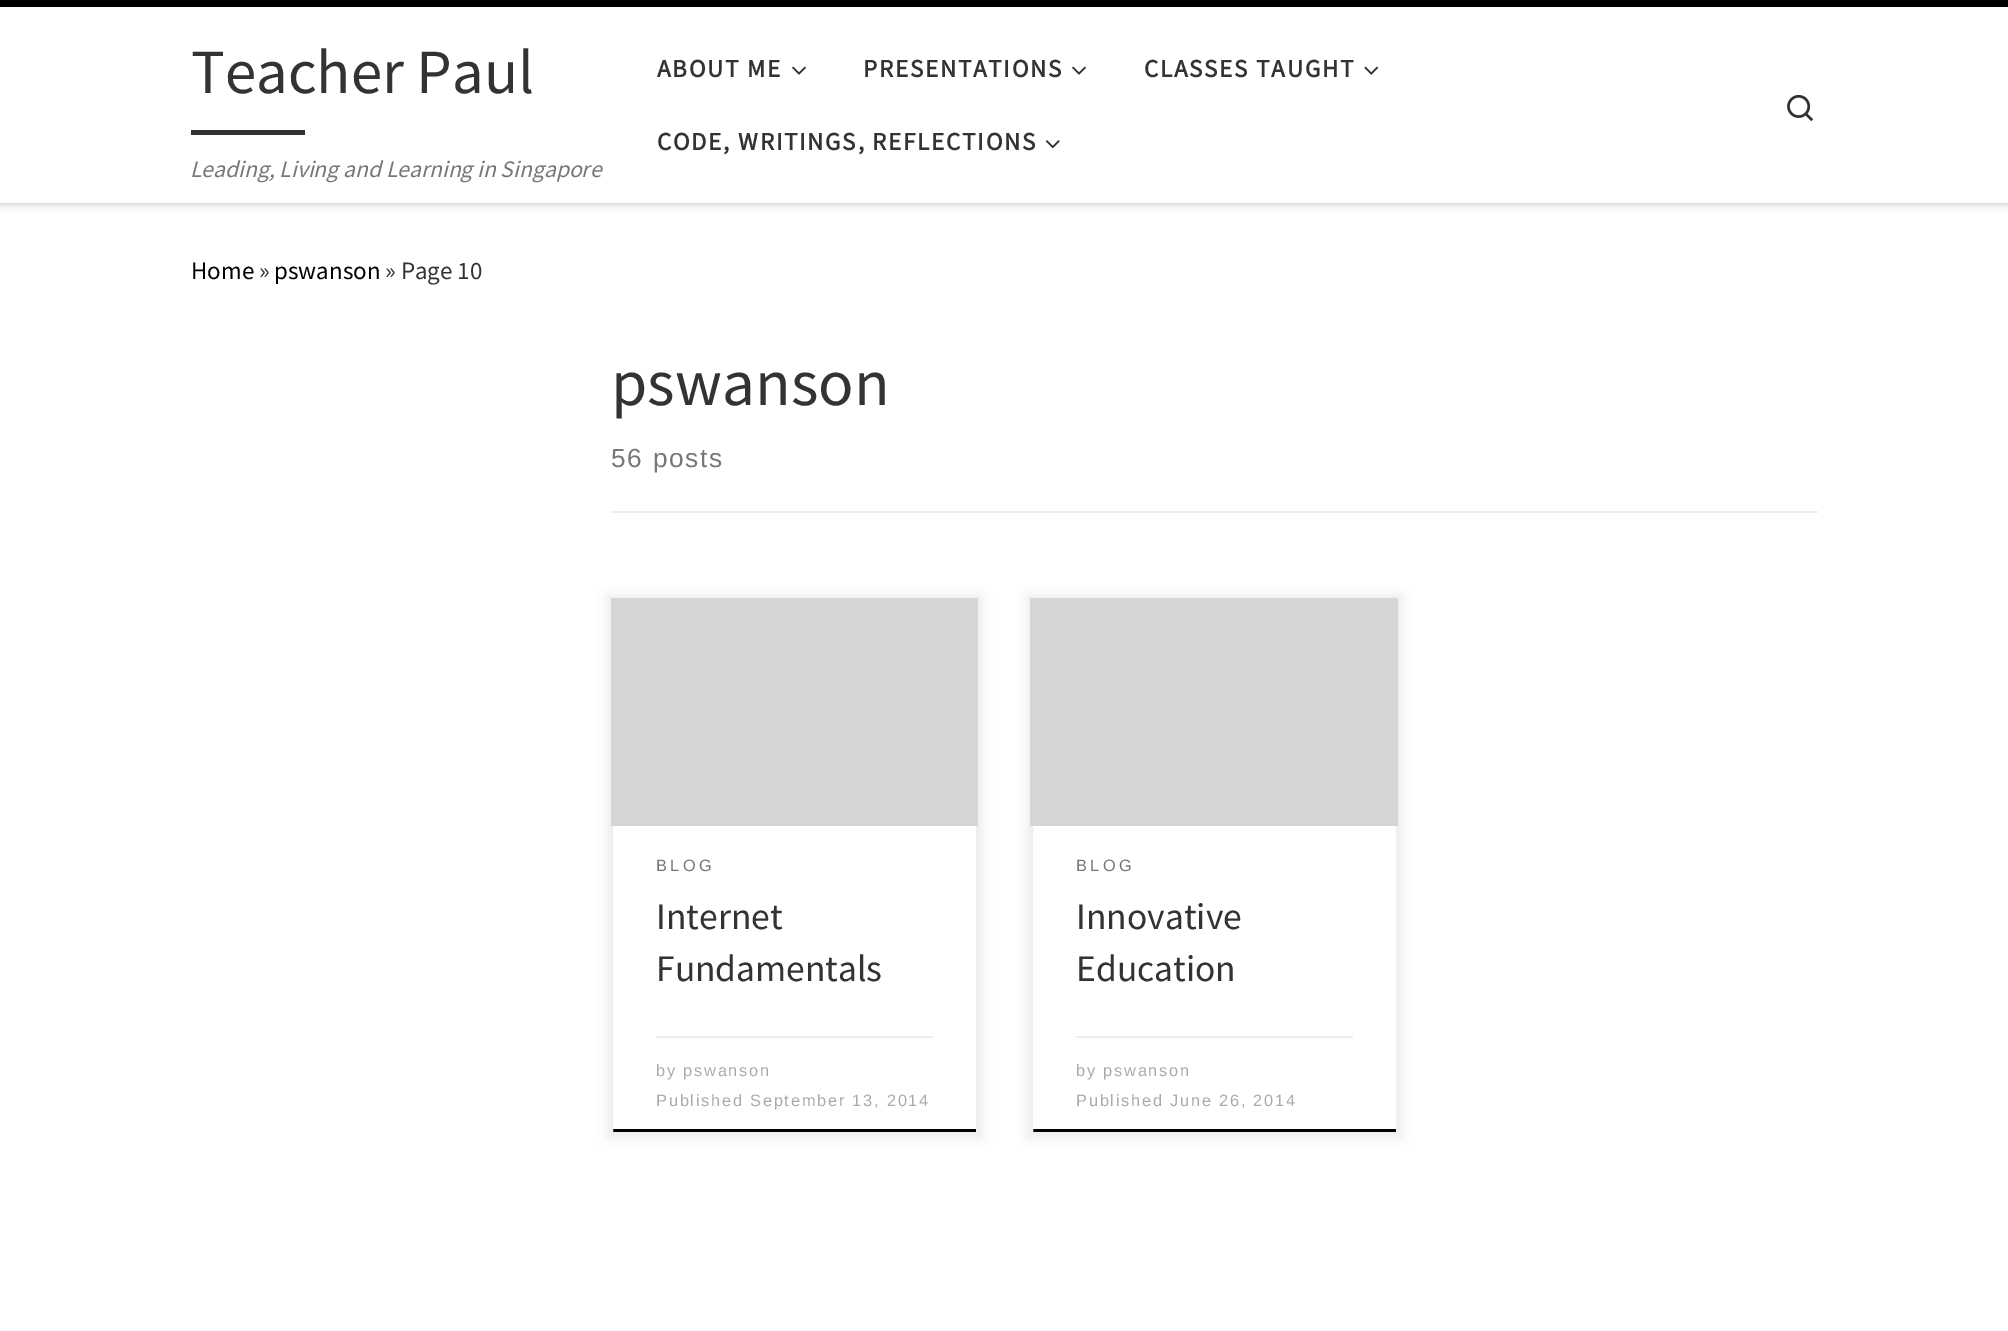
%!PS
<< /PageSize [2008 1331] /PageUsesTransparency true >> setpagedevice
/rgb { 3 { 255 div 3 1 roll } repeat setrgbcolor } def
/font { [ exch dup neg 0 0 3 -1 roll 0 0 ] selectfont } def
/text { moveto show } def
/alpha { dup .setfillconstantalpha .setstrokeconstantalpha } def
/roundrect { 5 dict begin { /r /h /w /y /x } { exch def } forall
  x r add y moveto x w add y 2 copy h add r arct x w add y h add x 1 index r arct
  x y h add x y r arct x y 2 copy exch w add exch r arct closepath end } def
/shadow { 12 dict begin { /a /b /q /h /w /y /x } { exch def } forall gsave /was 0 def
  9 -2 -9 { dup b mul 4 div /e exch def 1 sub .425 mul 2.718 exch exp 1 add a .99 .min exch div /now exch def
    1 1 now sub 1 was sub div sub alpha /was now def
    w h .min e 2 mul add 0 gt { x e sub y e sub w e 2 mul add h e 2 mul add
      q e add b .6 mul add w h .min 2 div e add .min 0 .max roundrect fill } if } for grestore end } def
/picture { 5 dict begin { /h /w /y /x /name } { exch def } forall
  gsave x y translate w h scale
  w h 8 [w 0 0 h 0 0] name (r) file false 3 colorimage grestore end } def
0 .pushpdf14devicefilter
0 1331 translate 1 -1 scale
4 setmiterlimit
255 255 255 rgb
0 0 2008 1331 rectfill
102 102 102 rgb
0 2 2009 203 0 2 0.08 shadow
0 0 0 rgb
0 0 2008 7 rectfill
0 7 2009 196 0 4.5 0.2 shadow
255 255 255 rgb
0 7 2008 196 rectfill
49 49 49 rgb
191 130 114 5 rectfill
(img_01.rgb) 792 66 14 9 picture
(img_01.rgb) 1072 66 14 9 picture
(img_02.rgb) 1364 66 15 9 picture
(img_03.rgb) 1045 140 15 9 picture
(img_04.rgb) 1787 94 27 28 picture
236 238 239 rgb
611 511 1207 2 rectfill
gsave
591 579 moveto 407 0 rlineto 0 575 rlineto -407 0 rlineto closepath 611 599 moveto 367 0 rlineto 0 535 rlineto -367 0 rlineto closepath eoclip newpath
0 0 0 rgb
607 595 375 543 0 5 0.07 shadow
grestore
0 0 0 rgb
611 1129 367 3 rectfill
239 239 239 rgb
2 setlinewidth
612 600 365 533 rectstroke
213 213 213 rgb
611 598 367 228 rectfill
236 238 239 rgb
656 1036 277 2 rectfill
gsave
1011 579 moveto 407 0 rlineto 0 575 rlineto -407 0 rlineto closepath 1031 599 moveto 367 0 rlineto 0 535 rlineto -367 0 rlineto closepath eoclip newpath
0 0 0 rgb
1027 595 375 543 0 5 0.07 shadow
grestore
0 0 0 rgb
1031 1129 367 3 rectfill
239 239 239 rgb
1032 600 365 533 rectstroke
213 213 213 rgb
1030 598 368 228 rectfill
236 238 239 rgb
1076 1036 277 2 rectfill
/SourceSansPro-Regular 63 font
51 51 51 rgb
(Teacher Paul) 191 93 text
/SourceSansPro-Italic 23.6 font
119 119 119 rgb
(Leading, Living and Learning in Singapore) 190 177 text
/SourceSansPro-Bold 25 font
51 51 51 rgb
657 77 moveto 1.75 0 (ABOUT ME) ashow
863 77 moveto 1.75 0 (PRESENTATIONS) ashow
1144 77 moveto 1.75 0 (CLASSES TAUGHT) ashow
657 150 moveto 1.75 0 (CODE, WRITINGS, REFLECTIONS) ashow
/SourceSansPro-Regular 25 font
0 0 0 rgb
(Home) 191 279 text
51 51 51 rgb
(») 259 279 text
0 0 0 rgb
(pswanson) 274 279 text
51 51 51 rgb
(» Page 10) 385 279 text
/SourceSansPro-Regular 65.5 font
(pswanson) 611 405 text
/LiberationSans-Regular 26.25 font
119 119 119 rgb
611 467 moveto 1.75 0 (56 posts) ashow
/LiberationSans-Regular 16.4 font
656 871 moveto 3.5 0 (BLOG) ashow
/SourceSansPro-Regular 37.5 font
51 51 51 rgb
(Internet) 656 929 text
(Fundamentals) 656 981 text
/LiberationSans-Regular 16.4 font
170 170 170 rgb
656 1076 moveto 1.75 0 (by pswanson) ashow
656 1106 moveto 1.75 0 (Published September 13, 2014) ashow
119 119 119 rgb
1076 871 moveto 3.5 0 (BLOG) ashow
/SourceSansPro-Regular 37.5 font
51 51 51 rgb
(Innovative) 1076 929 text
(Education) 1076 981 text
/LiberationSans-Regular 16.4 font
170 170 170 rgb
1076 1076 moveto 1.75 0 (by pswanson) ashow
1076 1106 moveto 1.75 0 (Published June 26, 2014) ashow
.poppdf14devicefilter showpage
